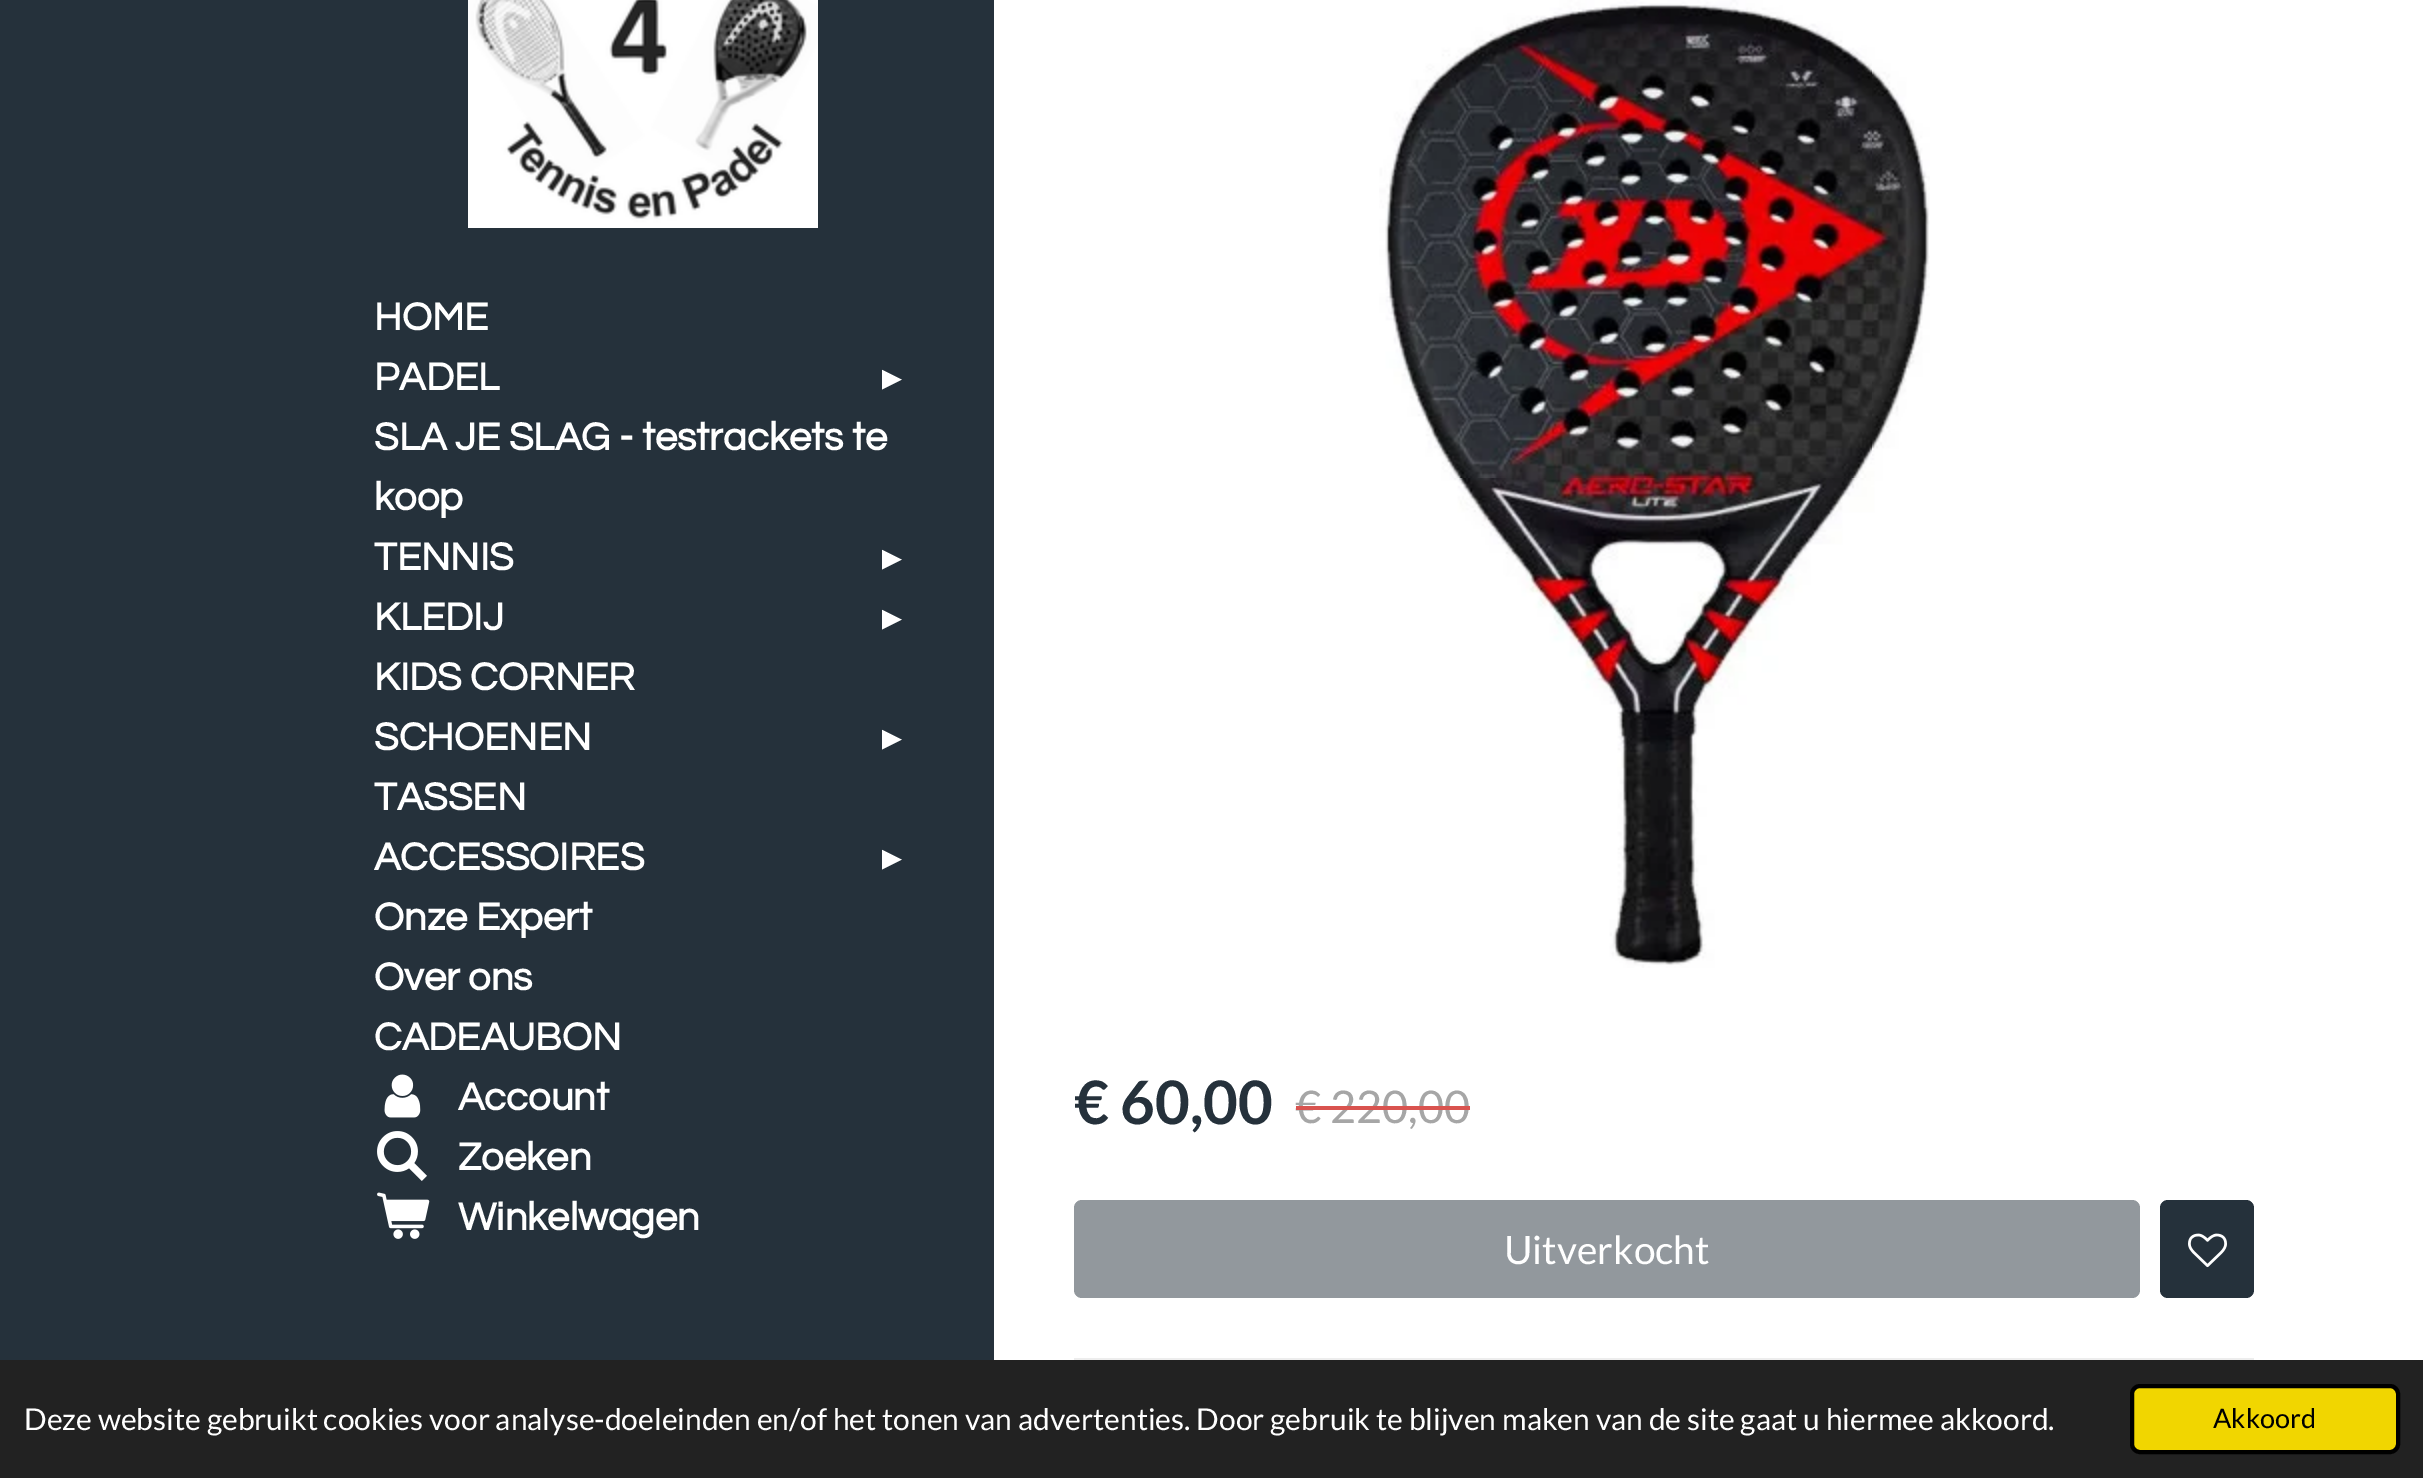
%!PS
<< /PageSize [2423 1478] >> setpagedevice
/rgb { 3 { 255 div 3 1 roll } repeat setrgbcolor } def
/font { [ exch dup neg 0 0 3 -1 roll 0 0 ] selectfont } def
/text { moveto show } def
/roundrect { 5 dict begin { /r /h /w /y /x } { exch def } forall
  x r add y moveto x w add y 2 copy h add r arct x w add y h add x 1 index r arct
  x y h add x y r arct x y 2 copy exch w add exch r arct closepath end } def
/picture { 5 dict begin { /h /w /y /x /name } { exch def } forall
  gsave x y translate w h scale
  w h 8 [w 0 0 h 0 0] name (r) file false 3 colorimage grestore end } def
0 1478 translate 1 -1 scale
4 setmiterlimit
255 255 255 rgb
0 0 2423 1478 rectfill
37 49 59 rgb
0 0 994 1360 rectfill
(img_01.rgb) 468 0 350 228 picture
(img_02.rgb) 384 1074 37 44 picture
(img_03.rgb) 377 1131 50 50 picture
(img_04.rgb) 377 1192 53 47 picture
(img_05.rgb) 1379 0 551 968 picture
146 152 157 rgb
1074 1200 1066 98 8 roundrect fill
37 49 59 rgb
2160 1200 94 98 8 roundrect fill
(img_06.rgb) 2188 1233 39 35 picture
237 237 237 rgb
1074 1358 1180 2 rectfill
34 34 34 rgb
0 1360 2423 118 rectfill
241 214 0 rgb
2132 1386 266 66 8 roundrect gsave fill grestore
0 0 0 rgb
4 setlinewidth
stroke
/Questrial-Bold 40 font
255 255 255 rgb
(HOME) 374 330 text
(PADEL) 374 390 text
/DejaVuSans-Regular 40 font
(▸) 882 390 text
/Questrial-Bold 40 font
(SLA JE SLAG - testrackets te) 374 450 text
(koop) 374 510 text
(TENNIS) 374 570 text
/DejaVuSans-Regular 40 font
(▸) 882 570 text
/Questrial-Bold 40 font
(KLEDIJ) 374 630 text
/DejaVuSans-Regular 40 font
(▸) 882 630 text
/Questrial-Bold 40 font
(KIDS CORNER) 374 690 text
(SCHOENEN) 374 750 text
/DejaVuSans-Regular 40 font
(▸) 882 750 text
/Questrial-Bold 40 font
(TASSEN) 374 810 text
(ACCESSOIRES) 374 870 text
/DejaVuSans-Regular 40 font
(▸) 882 870 text
/Questrial-Bold 40 font
(Onze Expert) 374 930 text
(Over ons) 374 990 text
(CADEAUBON) 374 1050 text
(Account) 458 1110 text
(Zoeken) 458 1170 text
(Winkelwagen) 458 1230 text
/Lato-Bold 60 font
37 49 59 rgb
(€ 60,00) 1074 1124 text
/Lato-Regular 45 font
166 166 166 rgb
(€ 220,00) 1295 1123 text
217 83 79 rgb
1296 1106 174 4 rectfill
/Lato-Regular 39 font
255 255 255 rgb
(Uitverkocht) 1504 1264 text
/Lato-Regular 30 font
(Deze website gebruikt cookies voor analyse-doeleinden en/of het tonen van advertenties. Door gebruik te blijven maken van de site gaat u hiermee akkoord.) 24 1430 text
/Lato-Regular 27 font
0 0 0 rgb
(Akkoord) 2213 1428 text
showpage
